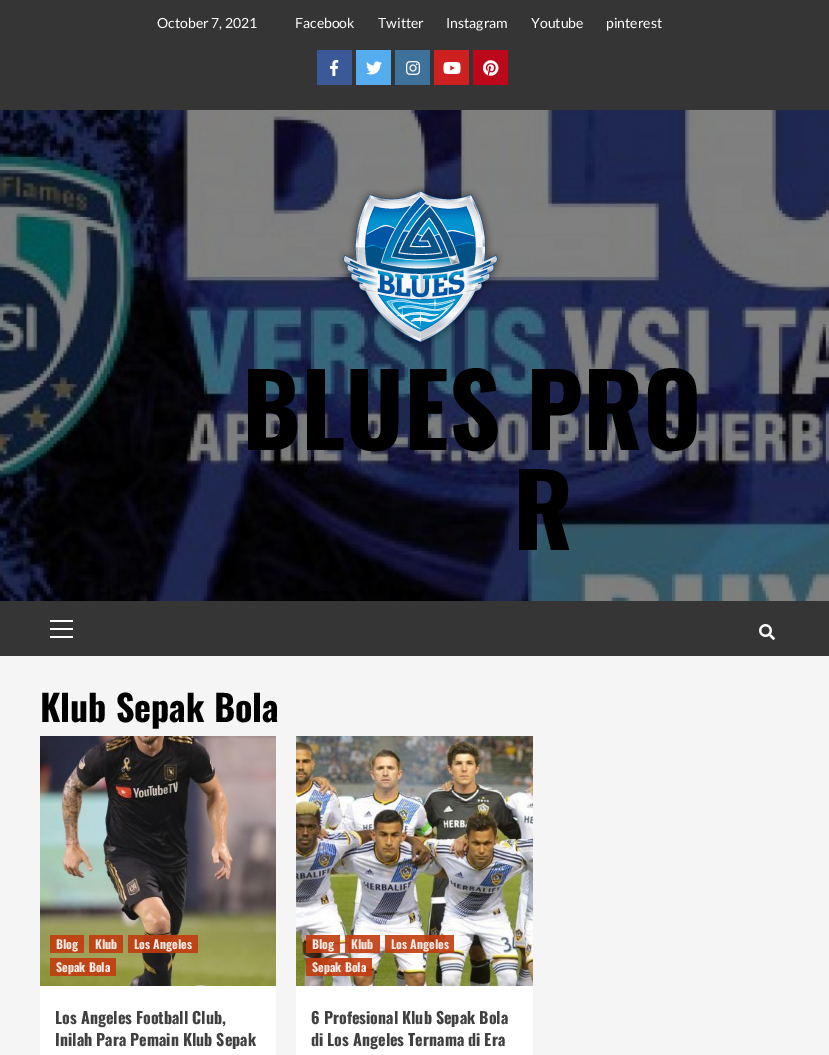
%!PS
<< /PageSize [829 1055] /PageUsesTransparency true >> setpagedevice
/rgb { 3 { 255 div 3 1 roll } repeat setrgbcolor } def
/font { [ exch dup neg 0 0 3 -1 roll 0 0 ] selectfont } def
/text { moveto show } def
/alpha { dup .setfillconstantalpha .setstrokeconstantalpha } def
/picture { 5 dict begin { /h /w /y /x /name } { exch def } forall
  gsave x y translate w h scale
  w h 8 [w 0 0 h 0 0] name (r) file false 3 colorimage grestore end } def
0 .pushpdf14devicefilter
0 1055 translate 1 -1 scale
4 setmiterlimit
245 245 245 rgb
0 0 829 1055 rectfill
53 53 53 rgb
0 0 829 110 rectfill
59 89 153 rgb
317 50 35 35 rectfill
(img_01.rgb) 330 60 9 16 picture
85 172 238 rgb
356 50 35 35 rectfill
(img_02.rgb) 366 61 16 14 picture
63 114 155 rgb
395 50 35 35 rectfill
(img_03.rgb) 406 61 14 14 picture
205 32 31 rgb
434 50 35 35 rectfill
(img_04.rgb) 443 62 18 12 picture
189 8 28 rgb
473 50 35 35 rectfill
(img_05.rgb) 483 60 16 16 picture
(img_06.rgb) 0 110 829 491 picture
(img_07.rgb) 338 186 165 161 picture
53 53 53 rgb
0 601 829 55 rectfill
255 255 255 rgb
50 628 23 2 rectfill
50 620 23 2 rectfill
50 636 23 2 rectfill
(img_08.rgb) 759 624 16 16 picture
40 986 236 69 rectfill
(img_09.rgb) 40 736 236 250 picture
0.9 alpha
194 59 14 rgb
50 935 34 18 rectfill
89 935 34 18 rectfill
128 935 70 18 rectfill
50 958 66 18 rectfill
1 alpha
255 255 255 rgb
296 986 237 69 rectfill
(img_10.rgb) 296 736 237 250 picture
0.9 alpha
194 59 14 rgb
306 935 34 18 rectfill
345 935 35 18 rectfill
385 935 69 18 rectfill
306 958 66 18 rectfill
/Lato-Regular 14 font
1 alpha
255 255 255 rgb
(October 7, 2021) 157 28 text
(Facebook) 295 28 text
(Twitter) 378 28 text
(Instagram) 446 28 text
(Youtube) 531 28 text
(pinterest) 606 28 text
/Oswald-Bold 100 font
0 0 0 rgb
(BLUES PRO) 242 450 text
(R) 513 550 text
/Oswald-Bold 36 font
(Klub Sepak Bola) 40 722 text
/Oswald-Bold 12 font
249 236 232 rgb
(Blog) 56 949 text
(Klub) 95 949 text
(Los Angeles) 134 949 text
(Sepak Bola) 56 972 text
/Oswald-Bold 16 font
64 64 64 rgb
(Los Angeles Football Club,) 55 1024 text
(Inilah Para Pemain Klub Sepak) 55 1046 text
/Oswald-Bold 12 font
249 236 232 rgb
(Blog) 312 949 text
(Klub) 351 949 text
(Los Angeles) 391 949 text
(Sepak Bola) 312 972 text
/Oswald-Bold 16 font
64 64 64 rgb
(6 Profesional Klub Sepak Bola) 311 1024 text
(di Los Angeles Ternama di Era) 311 1046 text
.poppdf14devicefilter showpage
